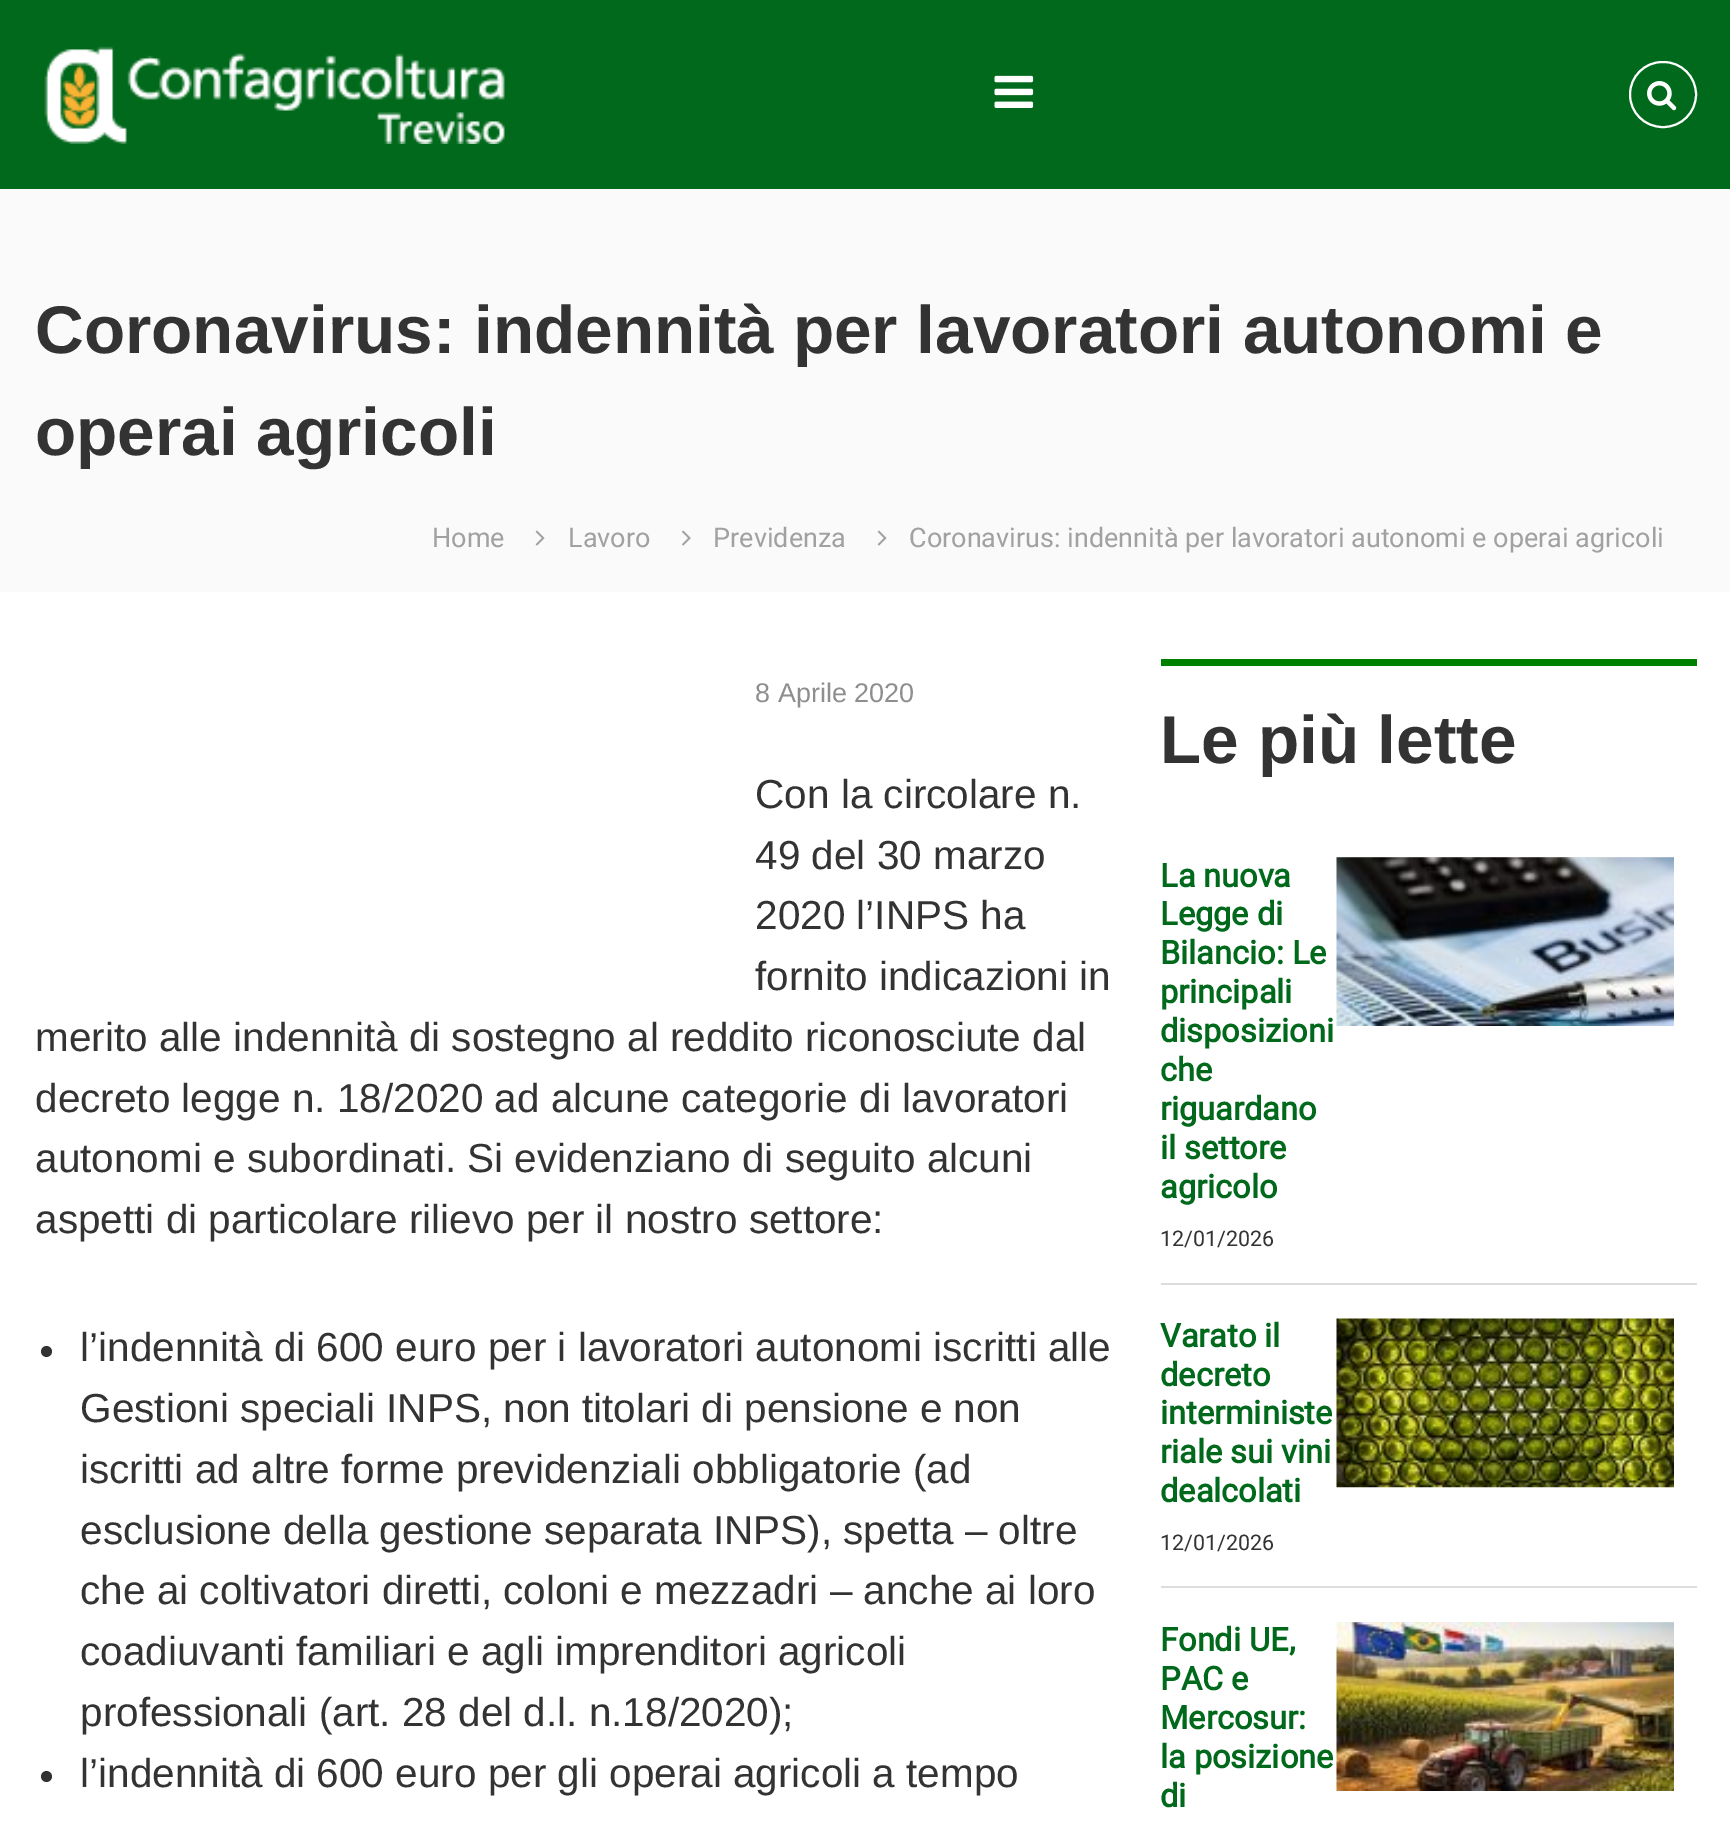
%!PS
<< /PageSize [1730 1823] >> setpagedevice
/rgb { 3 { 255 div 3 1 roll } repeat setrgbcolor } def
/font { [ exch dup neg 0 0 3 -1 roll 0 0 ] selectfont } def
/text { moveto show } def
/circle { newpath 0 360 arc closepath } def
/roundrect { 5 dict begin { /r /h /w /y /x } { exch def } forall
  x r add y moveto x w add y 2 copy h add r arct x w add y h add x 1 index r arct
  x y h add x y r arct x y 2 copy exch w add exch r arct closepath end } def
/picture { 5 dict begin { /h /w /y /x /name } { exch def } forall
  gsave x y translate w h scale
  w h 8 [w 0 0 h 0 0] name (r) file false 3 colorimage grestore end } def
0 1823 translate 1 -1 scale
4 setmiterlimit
255 255 255 rgb
0 0 1730 1823 rectfill
1 105 27 rgb
0 0 1730 189 rectfill
(img_01.rgb) 44 46 461 98 picture
(img_02.rgb) 994 75 40 33 picture
255 255 255 rgb
2 setlinewidth
1630 62 66 65 32.5 roundrect stroke
(img_03.rgb) 1647 81 30 30 picture
250 250 250 rgb
0 189 1730 403 rectfill
(img_04.rgb) 535 530 10 16 picture
(img_05.rgb) 682 530 9 16 picture
(img_04.rgb) 877 530 10 16 picture
51 51 51 rgb
46.5 1351.5 5.5 circle fill
46.5 1776.5 5.5 circle fill
0 128 0 rgb
1161 659 536 7 rectfill
221 221 221 rgb
1161 1283 536 2 rectfill
(img_06.rgb) 1336 857 338 169 picture
1161 1586 536 2 rectfill
(img_07.rgb) 1336 1318 338 170 picture
(img_08.rgb) 1336 1622 338 169 picture
/LiberationSans-Bold 67.5 font
51 51 51 rgb
(Coronavirus: indennità per lavoratori autonomi e) 35 353 text
(operai agricoli) 35 455 text
/Heebo-Regular 27 font
161 161 161 rgb
(Home) 432 547 text
(Lavoro) 568 547 text
(Previdenza) 713 547 text
(Coronavirus: indennità per lavoratori autonomi e operai agricoli) 909 547 text
/LiberationSans-Regular 27 font
142 142 142 rgb
(8 Aprile 2020) 755 702 text
/LiberationSans-Regular 40.5 font
51 51 51 rgb
(Con la circolare n.) 755 808 text
(49 del 30 marzo) 755 869 text
(2020 l’INPS ha) 755 929 text
(fornito indicazioni in) 755 990 text
(merito alle indennità di sostegno al reddito riconosciute dal) 35 1051 text
(decreto legge n. 18/2020 ad alcune categorie di lavoratori) 35 1112 text
(autonomi e subordinati. Si evidenziano di seguito alcuni) 35 1172 text
(aspetti di particolare rilievo per il nostro settore:) 35 1233 text
(l’indennità di 600 euro per i lavoratori autonomi iscritti alle) 80 1361 text
(Gestioni speciali INPS, non titolari di pensione e non) 80 1422 text
(iscritti ad altre forme previdenziali obbligatorie \(ad) 80 1483 text
(esclusione della gestione separata INPS\), spetta – oltre) 80 1544 text
(che ai coltivatori diretti, coloni e mezzadri – anche ai loro) 80 1604 text
(coadiuvanti familiari e agli imprenditori agricoli) 80 1665 text
(professionali \(art. 28 del d.l. n.18/2020\);) 80 1726 text
(l’indennità di 600 euro per gli operai agricoli a tempo) 80 1787 text
/LiberationSans-Bold 67.5 font
(Le più lette) 1160 763 text
/Heebo-Bold 32.5 font
1 105 27 rgb
(La nuova) 1160 887 text
(Legge di) 1160 925 text
(Bilancio: Le) 1160 964 text
(principali) 1160 1003 text
(disposizioni) 1160 1042 text
(che) 1160 1081 text
(riguardano) 1160 1120 text
(il settore) 1160 1159 text
(agricolo) 1160 1198 text
/Heebo-Regular 21.5 font
51 51 51 rgb
(12/01/2026) 1160 1246 text
/Heebo-Bold 32.5 font
1 105 27 rgb
(Varato il) 1160 1347 text
(decreto) 1160 1386 text
(interministe) 1160 1424 text
(riale sui vini) 1160 1463 text
(dealcolati) 1160 1502 text
/Heebo-Regular 21.5 font
51 51 51 rgb
(12/01/2026) 1160 1550 text
/Heebo-Bold 32.5 font
1 105 27 rgb
(Fondi UE,) 1160 1651 text
(PAC e) 1160 1690 text
(Mercosur:) 1160 1729 text
(la posizione) 1160 1768 text
(di) 1160 1807 text
showpage
